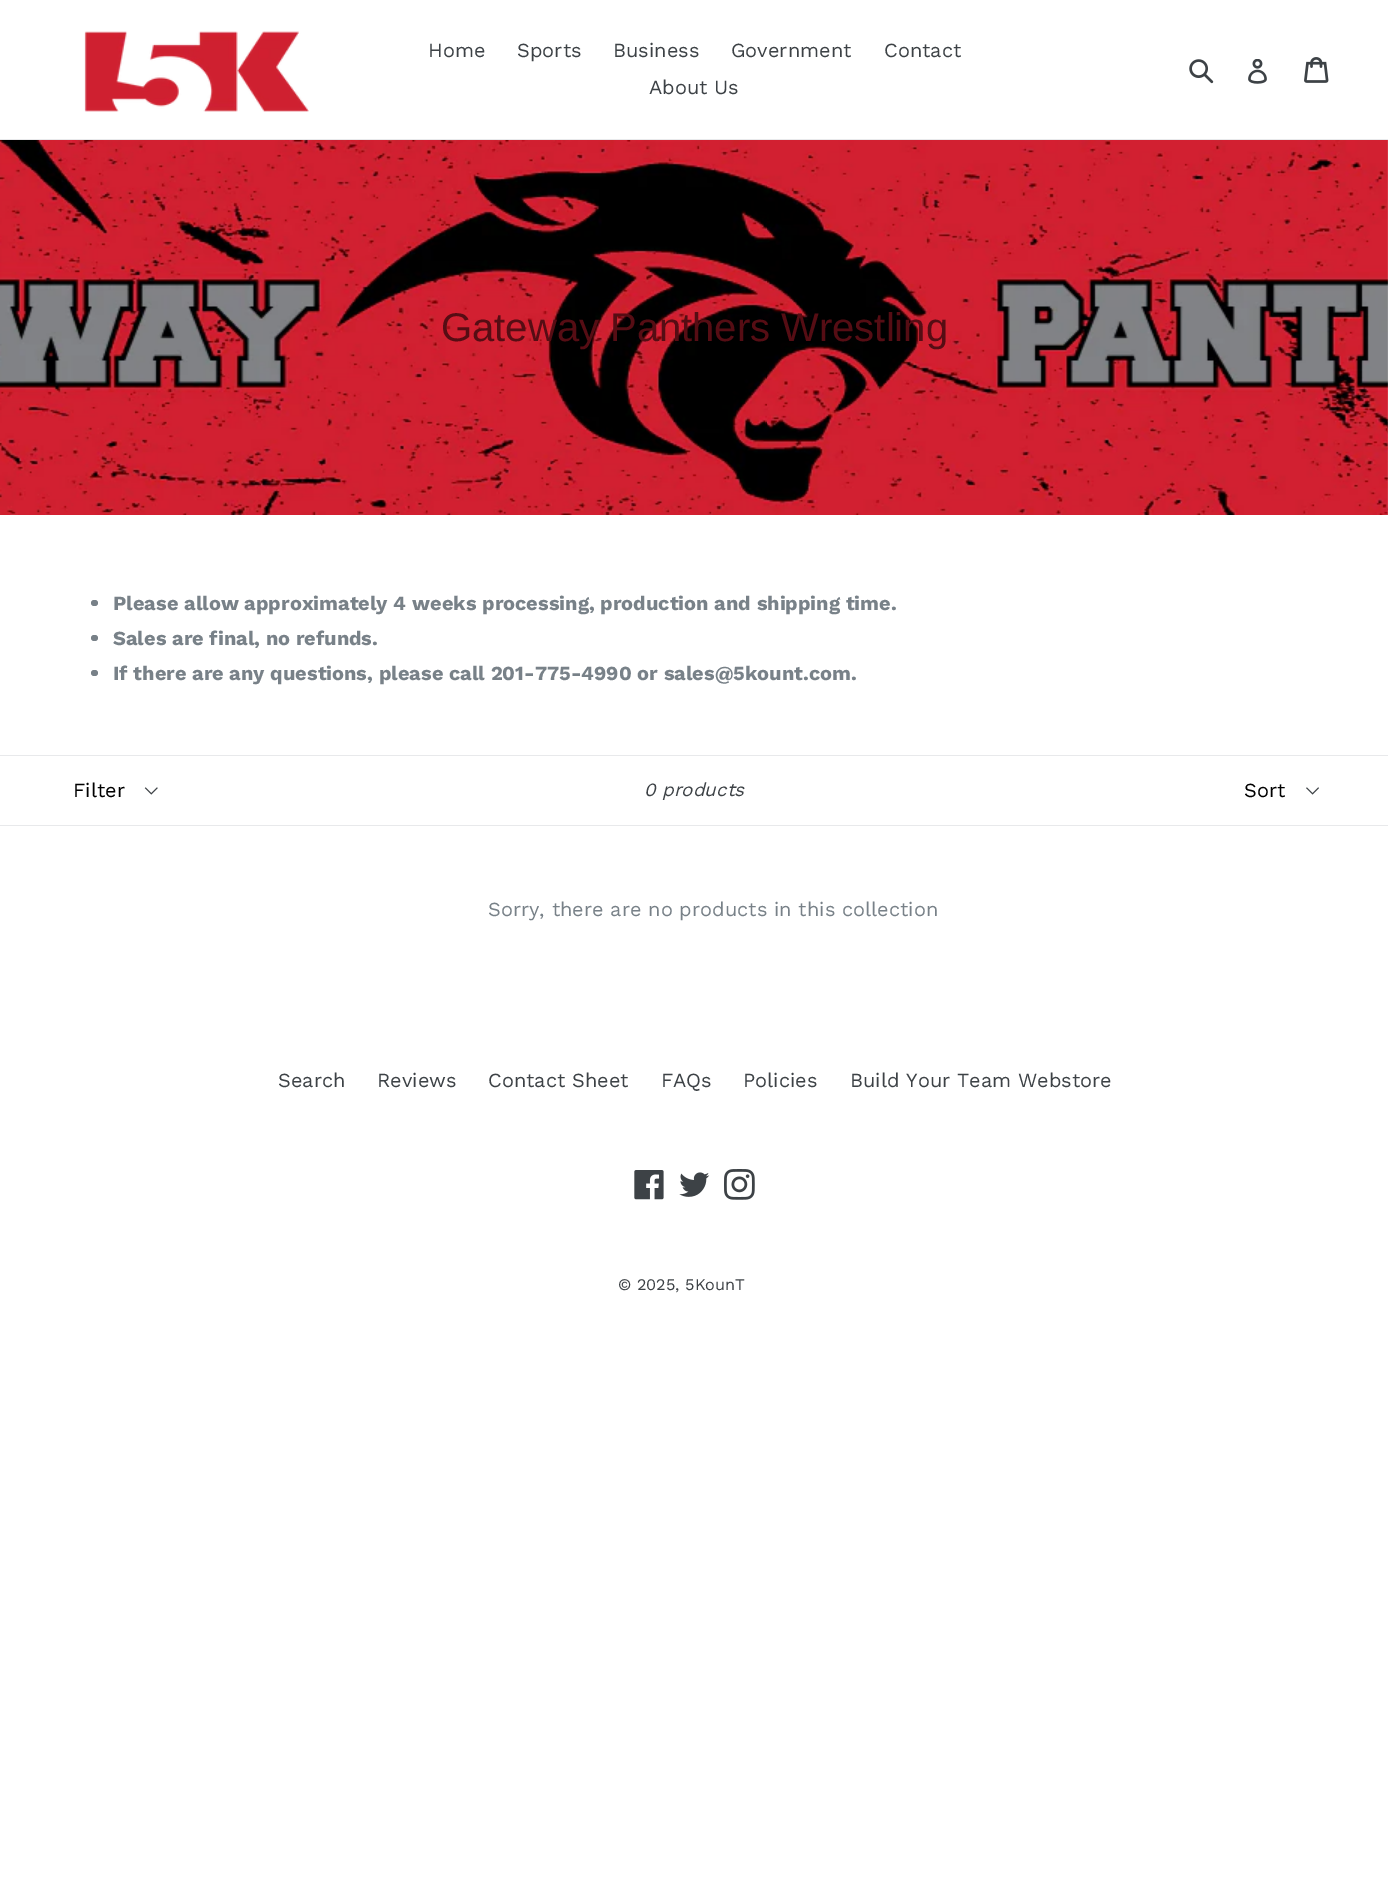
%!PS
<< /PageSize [1388 1884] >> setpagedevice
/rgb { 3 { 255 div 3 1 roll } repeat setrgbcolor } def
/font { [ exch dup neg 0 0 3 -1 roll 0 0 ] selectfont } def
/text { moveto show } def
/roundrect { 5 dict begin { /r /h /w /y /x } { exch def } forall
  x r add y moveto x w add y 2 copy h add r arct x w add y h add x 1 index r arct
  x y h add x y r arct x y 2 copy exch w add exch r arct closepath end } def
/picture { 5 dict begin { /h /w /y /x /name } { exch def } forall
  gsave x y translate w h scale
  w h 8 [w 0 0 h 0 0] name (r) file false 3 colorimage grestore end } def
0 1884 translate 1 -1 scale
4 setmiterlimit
255 255 255 rgb
0 0 1388 1884 rectfill
232 233 235 rgb
0 139 1388 1 rectfill
(img_01.rgb) 84 31 225 81 picture
(img_02.rgb) 1189 59 25 25 picture
(img_03.rgb) 1248 59 19 25 picture
(img_04.rgb) 1304 57 25 26 picture
(img_05.rgb) 0 140 1388 375 picture
120 129 136 rgb
91 600 7 6 3 roundrect fill
91 635 7 6 3 roundrect fill
91 670 7 6 3 roundrect fill
232 233 235 rgb
0 755 1388 1 rectfill
0 825 1388 1 rectfill
(img_06.rgb) 144 787 14 8 picture
(img_07.rgb) 1306 787 13 8 picture
(img_08.rgb) 634 1170 30 30 picture
(img_09.rgb) 679 1172 31 25 picture
(img_10.rgb) 724 1169 31 31 picture
/WorkSans-Regular 20 font
61 66 70 rgb
(Home) 428 57 text
(Sports) 517 57 text
(Business) 613 57 text
(Government) 731 57 text
(Contact) 884 57 text
(About Us) 649 94 text
/LiberationSans-Regular 40 font
86 13 20 rgb
(Gateway Panthers Wrestling) 441 341 text
/WorkSans-Bold 20 font
120 129 136 rgb
(Please allow approximately 4 weeks processing, production and shipping time.) 113 610 text
(Sales are final, no refunds.) 113 645 text
(If there are any questions, please call 201-775-4990 or sales@5kount.com.) 113 680 text
/WorkSans-Regular 20 font
0 0 0 rgb
(Filter) 73 797 text
/WorkSans-Italic 18.75 font
61 66 70 rgb
(0 products) 644 796 text
/WorkSans-Regular 20 font
0 0 0 rgb
(Sort) 1244 797 text
120 129 136 rgb
(Sorry, there are no products in this collection) 488 916 text
61 66 70 rgb
(Search) 278 1087 text
(Reviews) 377 1087 text
(Contact Sheet) 488 1087 text
(FAQs) 661 1087 text
(Policies) 743 1087 text
(Build Your Team Webstore) 850 1087 text
/WorkSans-Regular 16.25 font
(© 2025, 5KounT) 618 1290 text
showpage
